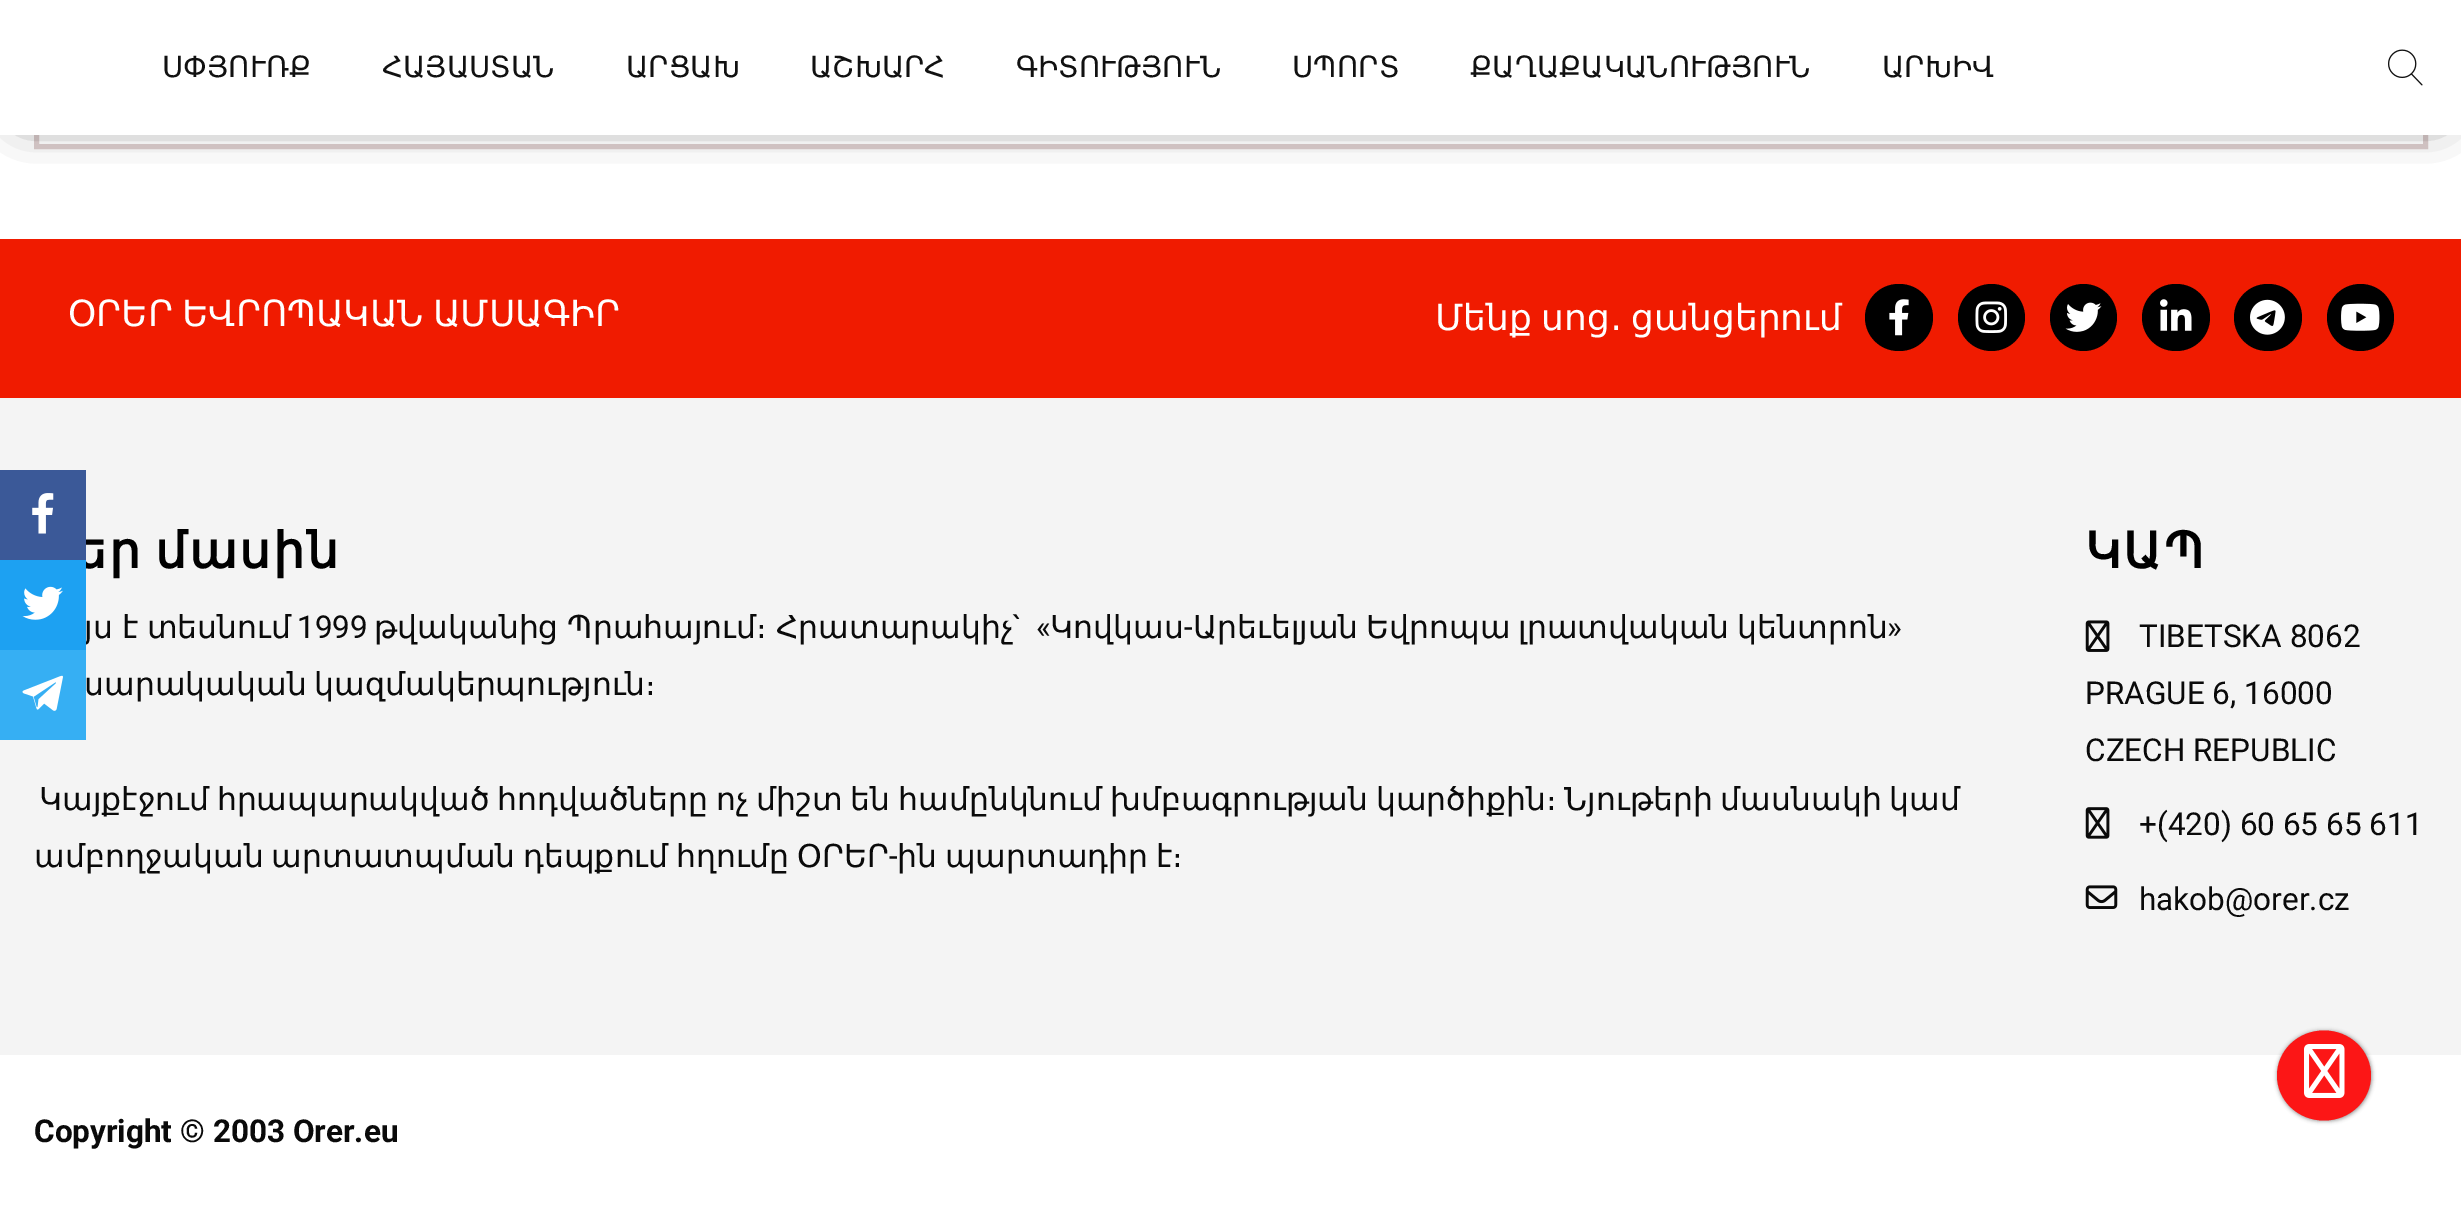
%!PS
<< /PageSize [2461 1210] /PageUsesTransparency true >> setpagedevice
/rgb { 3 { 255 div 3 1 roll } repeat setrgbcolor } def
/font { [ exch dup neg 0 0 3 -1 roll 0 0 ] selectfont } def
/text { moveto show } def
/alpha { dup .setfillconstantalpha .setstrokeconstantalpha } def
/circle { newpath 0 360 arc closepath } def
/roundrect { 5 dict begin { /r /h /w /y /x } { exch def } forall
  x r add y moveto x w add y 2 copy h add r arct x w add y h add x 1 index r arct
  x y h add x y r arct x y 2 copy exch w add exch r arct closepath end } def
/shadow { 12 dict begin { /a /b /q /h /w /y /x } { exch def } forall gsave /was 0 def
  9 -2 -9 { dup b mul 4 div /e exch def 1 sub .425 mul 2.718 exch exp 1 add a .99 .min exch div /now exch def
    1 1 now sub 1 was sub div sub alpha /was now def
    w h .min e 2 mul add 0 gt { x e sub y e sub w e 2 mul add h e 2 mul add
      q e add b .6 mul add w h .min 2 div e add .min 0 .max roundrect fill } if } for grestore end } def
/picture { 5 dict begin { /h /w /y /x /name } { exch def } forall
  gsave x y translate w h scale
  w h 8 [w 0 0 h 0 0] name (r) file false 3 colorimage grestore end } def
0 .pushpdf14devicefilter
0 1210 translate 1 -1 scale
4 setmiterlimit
255 255 255 rgb
0 0 2461 1210 rectfill
220 205 205 rgb
5 setlinewidth
36.5 -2.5 2389 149 rectstroke
0 0 0 rgb
23 23 2416 90 0 22.5 0.8 shadow
255 255 255 rgb
0 0 2461 135 rectfill
(img_01.rgb) 2388 49 35 37 picture
240 27 0 rgb
0 239 2461 159 rectfill
0 0 0 rgb
1865 284 68 67 33.5 roundrect fill
(img_02.rgb) 1889 299 20 37 picture
1991.5 317.5 33.5 circle fill
(img_03.rgb) 1975 301 32 32 picture
2083.5 317.5 33.5 circle fill
(img_04.rgb) 2065 302 37 30 picture
2142 284 68 67 33.5 roundrect fill
(img_05.rgb) 2160 299 32 32 picture
2234 284 68 67 33.5 roundrect fill
(img_06.rgb) 2250 299 35 36 picture
2360.5 317.5 33.5 circle fill
(img_07.rgb) 2341 303 39 28 picture
244 244 244 rgb
0 398 2461 657 rectfill
(img_08.rgb) 2085 620 25 32 picture
(img_09.rgb) 2085 807 25 32 picture
(img_10.rgb) 2085 885 33 24 picture
54 175 243 rgb
0 650 86 90 rectfill
(img_13.rgb) 22 675 41 36 picture
0 0 0 rgb
2277 1031 95 90 45 2 0.4 shadow
252 22 22 rgb
2324 1030.5 moveto 26 0 47 20 47 45 rcurveto 0 25 -21 45 -47 45 rcurveto -26 0 -47 -20 -47 -45 rcurveto 0 -25 21 -45 47 -45 rcurveto closepath fill
(img_14.rgb) 2304 1044 41 54 picture
/DejaVuSans-Regular 29.25 font
17 17 17 rgb
(ՍՓՅՈՒՌՔ) 162 77 text
(ՀԱՅԱՍՏԱՆ) 382 77 text
(ԱՐՑԱԽ) 626 77 text
(ԱՇԽԱՐՀ) 810 77 text
(ԳԻՏՈՒԹՅՈՒՆ) 1016 77 text
(ՍՊՈՐՏ) 1292 77 text
(ՔԱՂԱՔԱԿԱՆՈՒԹՅՈՒՆ) 1470 77 text
(ԱՐԽԻՎ) 1882 77 text
/DejaVuSans-Regular 36 font
255 255 255 rgb
68 326 moveto -2 0 32 (ՕՐԵՐ ԵՎՐՈՊԱԿԱՆ ԱՄՍԱԳԻՐ) widthshow
1435 330 moveto -2 0 32 (Մենք սոց․ ցանցերում) widthshow
/DejaVuSans-Bold 49.5 font
0 0 0 rgb
75 568 moveto -5 0 32 2.25 0 (եր մասին) awidthshow
/DejaVuSans-Regular 31.5 font
10 10 10 rgb
84 638 moveto -1 0 32 (յս է տեսնում) widthshow
/Roboto-Regular 31.5 font
(1999) 297 638 text
/DejaVuSans-Regular 31.5 font
374 638 moveto -1 0 32 (թվականից Պրահայում։ Հրատարակիչ) widthshow
/Roboto-Regular 31.5 font
(`) 1012 638 text
(«) 1036 638 text
/DejaVuSans-Regular 31.5 font
(Կովկաս) 1050 638 text
/Roboto-Regular 31.5 font
(-) 1184 638 text
/DejaVuSans-Regular 31.5 font
1193 638 moveto -2.25 0 32 (Արեւելյան Եվրոպա լրատվական կենտրոն) widthshow
/Roboto-Regular 31.5 font
(») 1887 638 text
/DejaVuSans-Regular 31.5 font
84 695 moveto -2.25 0 32 (սարակական կազմակերպություն։) widthshow
39 810 moveto -2.25 0 32 (Կայքէջում հրապարակված հոդվածները ոչ միշտ են համընկնում խմբագրության կարծիքին։ Նյութերի մասնակի կամ) widthshow
34 867 moveto -2.25 0 32 (ամբողջական արտատպման դեպքում հղումը ՕՐԵՐ) widthshow
/Roboto-Regular 31.5 font
(-) 889 867 text
/DejaVuSans-Regular 31.5 font
897 867 moveto -2.25 0 32 (ին պարտադիր է։) widthshow
/DejaVuSans-Bold 49.5 font
0 0 0 rgb
2085 568 moveto 2.25 0 (ԿԱՊ) ashow
/Roboto-Regular 31.5 font
10 10 10 rgb
(TIBETSKA 8062) 2139 647 text
(PRAGUE 6, 16000) 2085 704 text
(CZECH REPUBLIC) 2085 761 text
(+\(420\) 60 65 65 611) 2139 835 text
(hakob@orer.cz) 2139 910 text
/Roboto-Bold 31.5 font
(Copyright © 2003 Orer.eu) 34 1142 text
59 89 152 rgb
0 470 86 90 rectfill
(img_11.rgb) 32 493 22 41 picture
29 161 242 rgb
0 560 86 90 rectfill
(img_12.rgb) 22 586 41 34 picture
.poppdf14devicefilter showpage
